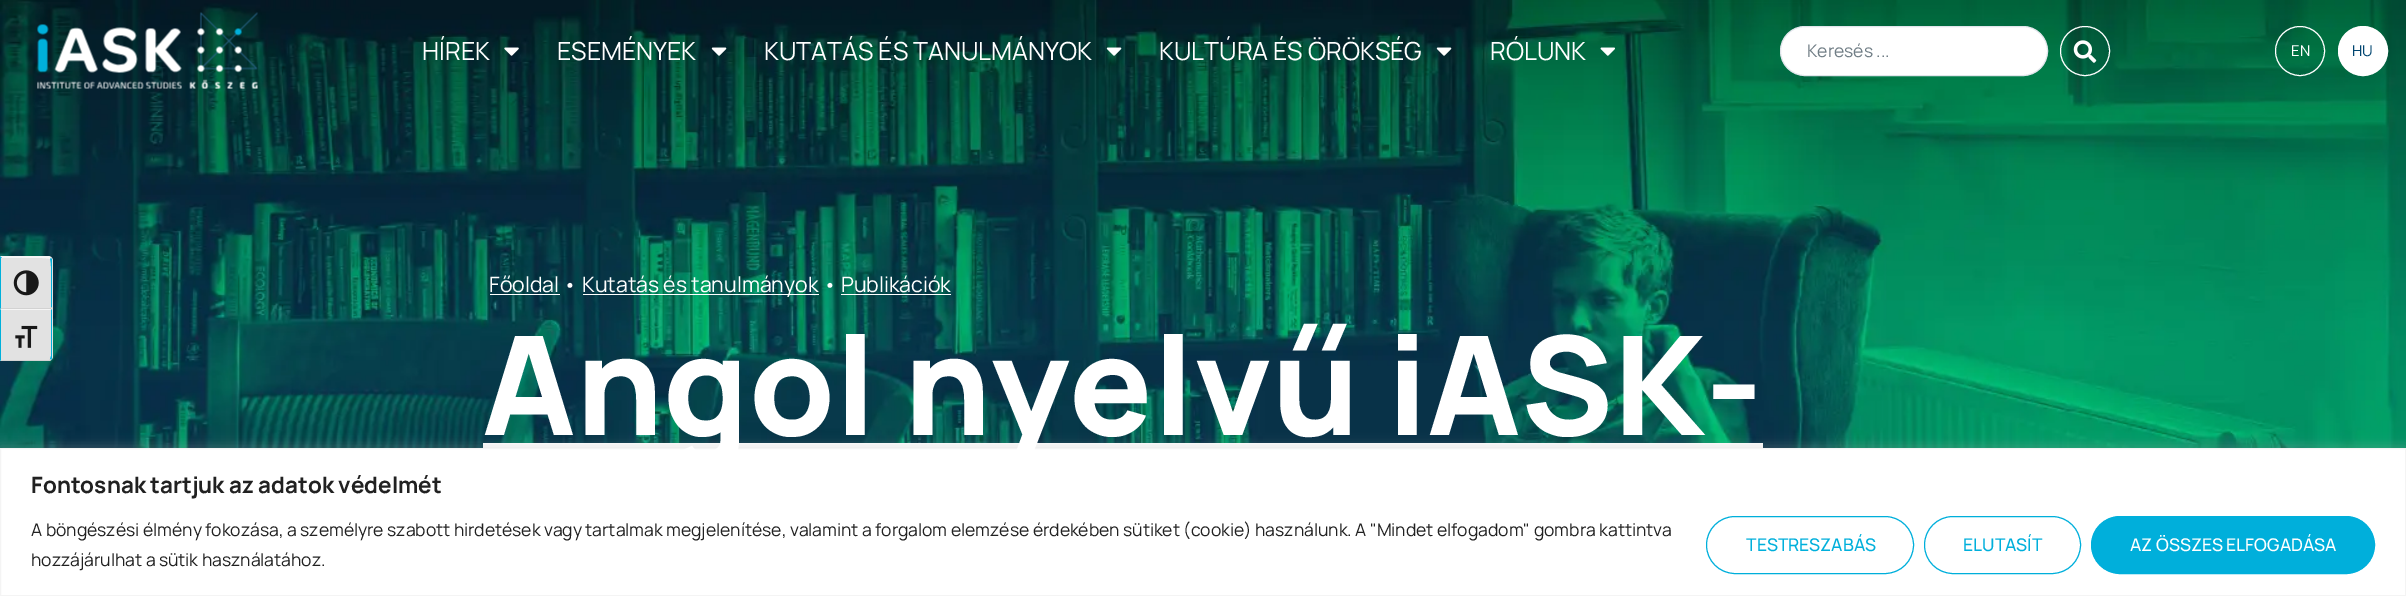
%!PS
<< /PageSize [2406 596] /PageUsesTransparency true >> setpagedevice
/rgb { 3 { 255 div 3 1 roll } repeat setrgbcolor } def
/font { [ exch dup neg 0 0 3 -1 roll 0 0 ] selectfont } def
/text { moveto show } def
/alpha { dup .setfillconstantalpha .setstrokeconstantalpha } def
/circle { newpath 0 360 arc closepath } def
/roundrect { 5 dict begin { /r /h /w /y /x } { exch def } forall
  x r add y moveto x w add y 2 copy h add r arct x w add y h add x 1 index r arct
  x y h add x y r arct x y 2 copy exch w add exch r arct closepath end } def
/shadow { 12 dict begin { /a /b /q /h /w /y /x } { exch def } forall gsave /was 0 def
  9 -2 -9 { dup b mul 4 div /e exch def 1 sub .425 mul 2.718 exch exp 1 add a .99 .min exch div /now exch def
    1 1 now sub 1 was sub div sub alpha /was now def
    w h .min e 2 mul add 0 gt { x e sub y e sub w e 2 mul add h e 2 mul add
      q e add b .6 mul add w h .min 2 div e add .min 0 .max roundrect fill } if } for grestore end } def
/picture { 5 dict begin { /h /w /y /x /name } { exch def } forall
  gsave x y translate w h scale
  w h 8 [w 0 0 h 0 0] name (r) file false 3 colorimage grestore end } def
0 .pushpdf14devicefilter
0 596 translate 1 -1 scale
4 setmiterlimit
255 255 255 rgb
0 0 2406 596 rectfill
(img_10.rgb) 0 0 2406 448 picture
226 226 226 rgb
0 256 moveto 48 0 rlineto 3 0 5 2 5 5 rcurveto 0 48 rlineto -53 0 rlineto closepath fill
245 245 245 rgb
0 256 moveto 49 0 rlineto 2 2 rlineto -1 1 rlineto -2 -2 -42 -1 -48 -1 rcurveto closepath fill
0 176 219 rgb
51 258 moveto 1 1 1 2 1 3 rcurveto 0 47 rlineto -1 -1 rlineto 0 -5 1 -47 -1 -48 rcurveto closepath fill
210 210 210 rgb
52 309 moveto -52 0 rlineto 1 -1 rlineto 50 0 rlineto 0 -1 rlineto closepath fill
0 176 219 rgb
1 258 moveto 1 0 rlineto -2 -2 rlineto 0 53 rlineto 1 -1 rlineto closepath fill
(img_01.rgb) 13 270 26 26 picture
226 226 226 rgb
0 309 moveto 53 0 rlineto 0 47 rlineto 0 3 -2 5 -5 5 rcurveto -48 0 rlineto closepath fill
245 245 245 rgb
52 309 moveto -52 0 rlineto 1 1 rlineto 50 0 rlineto closepath fill
0 176 219 rgb
52 309 moveto 0 47 rlineto 0 1 0 3 -1 4 rcurveto -1 -1 rlineto 1 -3 rlineto 0 -46 rlineto closepath fill
210 210 210 rgb
51 360 moveto -2 1 rlineto -49 0 rlineto 1 -1 rlineto 48 0 rlineto 1 -1 rlineto closepath fill
0 176 219 rgb
1 310 moveto 0 50 rlineto -1 1 rlineto 0 -52 rlineto closepath fill
(img_02.rgb) 15 325 23 23 picture
(img_03.rgb) 37 12 221 77 picture
(img_04.rgb) 504 47 15 9 picture
(img_05.rgb) 711 47 16 9 picture
(img_06.rgb) 1106 47 16 9 picture
(img_07.rgb) 1436 47 16 9 picture
(img_08.rgb) 1600 47 15 9 picture
255 255 255 rgb
1780.5 26.5 267 49 24.5 roundrect gsave fill grestore
225 229 235 rgb
stroke
255 255 255 rgb
2085 51 24.5 circle stroke
(img_09.rgb) 2073 40 24 23 picture
2300 51 24.5 circle stroke
2363 51 24.5 circle gsave fill grestore
stroke
490 294 70 1 rectfill
583 294 236 1 rectfill
841 294 110 1 rectfill
483 443 1280 5 rectfill
172 171 171 rgb
0 446 2406 149 0 6 0.3 shadow
255 255 255 rgb
0.5 448.5 moveto 2405 0 rlineto 0 147 rlineto -2405 0 rlineto closepath gsave fill grestore
244 244 244 rgb
stroke
0 175 219 rgb
1706.5 516.5 207 57 28.5 roundrect stroke
1924.5 516.5 156 57 28.5 roundrect stroke
2091.5 516.5 283 57 28.5 roundrect gsave fill grestore
stroke
/Manrope-Regular 25 font
255 255 255 rgb
(HÍREK) 422 60 text
(ESEMÉNYEK) 557 60 text
(KUTATÁS ÉS TANULMÁNYOK) 764 60 text
(KULTÚRA ÉS ÖRÖKSÉG) 1159 60 text
(RÓLUNK) 1490 60 text
/Manrope-Regular 17.5 font
113 126 134 rgb
(Keresés ...) 1807 57 text
/Manrope-Regular 15 font
255 255 255 rgb
(EN) 2291 56 text
0 69 112 rgb
(HU) 2352 56 text
/Manrope-Regular 21.25 font
255 255 255 rgb
(Főoldal •) 489 292 text
(Kutatás és tanulmányok • Publikációk) 582 292 text
/Manrope-ExtraBold 137.5 font
(Angol nyelvű iASK-) 482 435 text
/Manrope-Bold 22.5 font
33 33 33 rgb
(Fontosnak tartjuk az adatok védelmét) 31 493 text
/Manrope-Regular 17.5 font
(A böngészési élmény fokozása, a személyre szabott hirdetések vagy tartalmak megjelenítése, valamint a forgalom elemzése érdekében sütiket \(cookie\) használunk. A "Mindet elfogadom" gombra kattintva) 31 536 text
(hozzájárulhat a sütik használatához.) 31 566 text
/Manrope-Medium 17.5 font
0 175 219 rgb
(TESTRESZABÁS) 1746 551 text
(ELUTASÍT) 1963 551 text
255 255 255 rgb
(AZ ÖSSZES ELFOGADÁSA) 2130 551 text
.poppdf14devicefilter showpage
